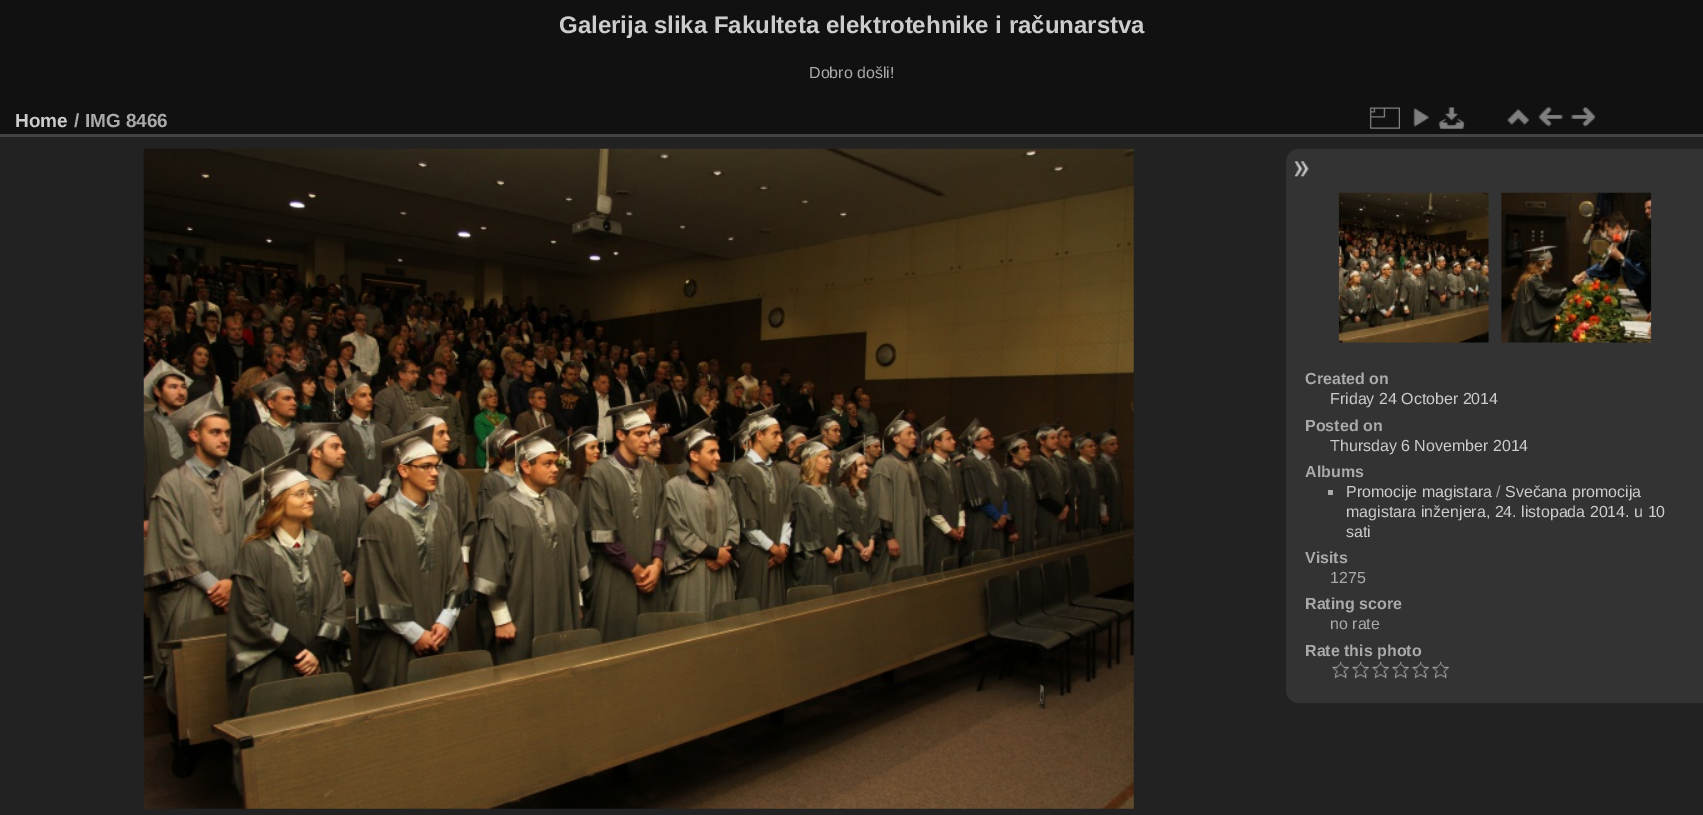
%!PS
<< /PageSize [1703 815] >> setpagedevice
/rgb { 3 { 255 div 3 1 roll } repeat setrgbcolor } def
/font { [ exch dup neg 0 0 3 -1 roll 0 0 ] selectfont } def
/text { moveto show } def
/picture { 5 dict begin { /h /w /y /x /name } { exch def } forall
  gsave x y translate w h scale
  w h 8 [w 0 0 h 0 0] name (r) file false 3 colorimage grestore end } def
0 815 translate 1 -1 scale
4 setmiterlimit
17 17 17 rgb
0 0 1703 815 rectfill
34 34 34 rgb
0 137 1703 678 rectfill
68 68 68 rgb
0 134 1703 3 rectfill
(img_01.rgb) 1369 107 31 22 picture
(img_02.rgb) 1413 108 16 19 picture
(img_03.rgb) 1438 107 27 22 picture
(img_04.rgb) 1507 108 22 18 picture
(img_05.rgb) 1538 107 25 20 picture
(img_06.rgb) 1571 107 25 20 picture
(img_07.rgb) 143 148 991 661 picture
51 51 51 rgb
1299 149 moveto 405 0 rlineto 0 554 rlineto -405 0 rlineto -7 0 -13 -6 -13 -13 rcurveto 0 -528 rlineto 0 -7 6 -13 13 -13 rcurveto closepath fill
(img_08.rgb) 1294 161 15 16 picture
(img_09.rgb) 1338 192 151 151 picture
(img_10.rgb) 1501 192 151 151 picture
170 170 170 rgb
1328 490 5 5 rectfill
(img_11.rgb) 1332 661 17 18 picture
(img_11.rgb) 1352 661 17 18 picture
(img_11.rgb) 1372 661 17 18 picture
(img_11.rgb) 1392 661 17 18 picture
(img_11.rgb) 1412 661 17 18 picture
(img_11.rgb) 1432 661 17 18 picture
/LiberationSans-Bold 24 font
204 204 204 rgb
(Galerija slika Fakulteta elektrotehnike i računarstva) 559 33 text
/LiberationSans-Regular 16 font
170 170 170 rgb
(Dobro došli!) 809 78 text
/LiberationSans-Bold 19 font
204 204 204 rgb
(Home) 15 127 text
170 170 170 rgb
(/ IMG 8466) 74 127 text
/LiberationSans-Bold 16 font
(Created on) 1305 384 text
/LiberationSans-Regular 16 font
204 204 204 rgb
(Friday 24 October 2014) 1330 404 text
/LiberationSans-Bold 16 font
170 170 170 rgb
(Posted on) 1305 431 text
/LiberationSans-Regular 16 font
204 204 204 rgb
(Thursday 6 November 2014) 1330 451 text
/LiberationSans-Bold 16 font
170 170 170 rgb
(Albums) 1305 477 text
/LiberationSans-Regular 16 font
204 204 204 rgb
(Promocije magistara) 1346 497 text
170 170 170 rgb
(/) 1496 497 text
204 204 204 rgb
(Svečana promocija) 1505 497 text
(magistara inženjera, 24. listopada 2014. u 10) 1346 517 text
(sati) 1346 537 text
/LiberationSans-Bold 16 font
170 170 170 rgb
(Visits) 1305 563 text
/LiberationSans-Regular 16 font
(1275) 1330 583 text
/LiberationSans-Bold 16 font
(Rating score) 1305 609 text
/LiberationSans-Regular 16 font
(no rate) 1330 629 text
/LiberationSans-Bold 16 font
(Rate this photo) 1305 656 text
showpage
